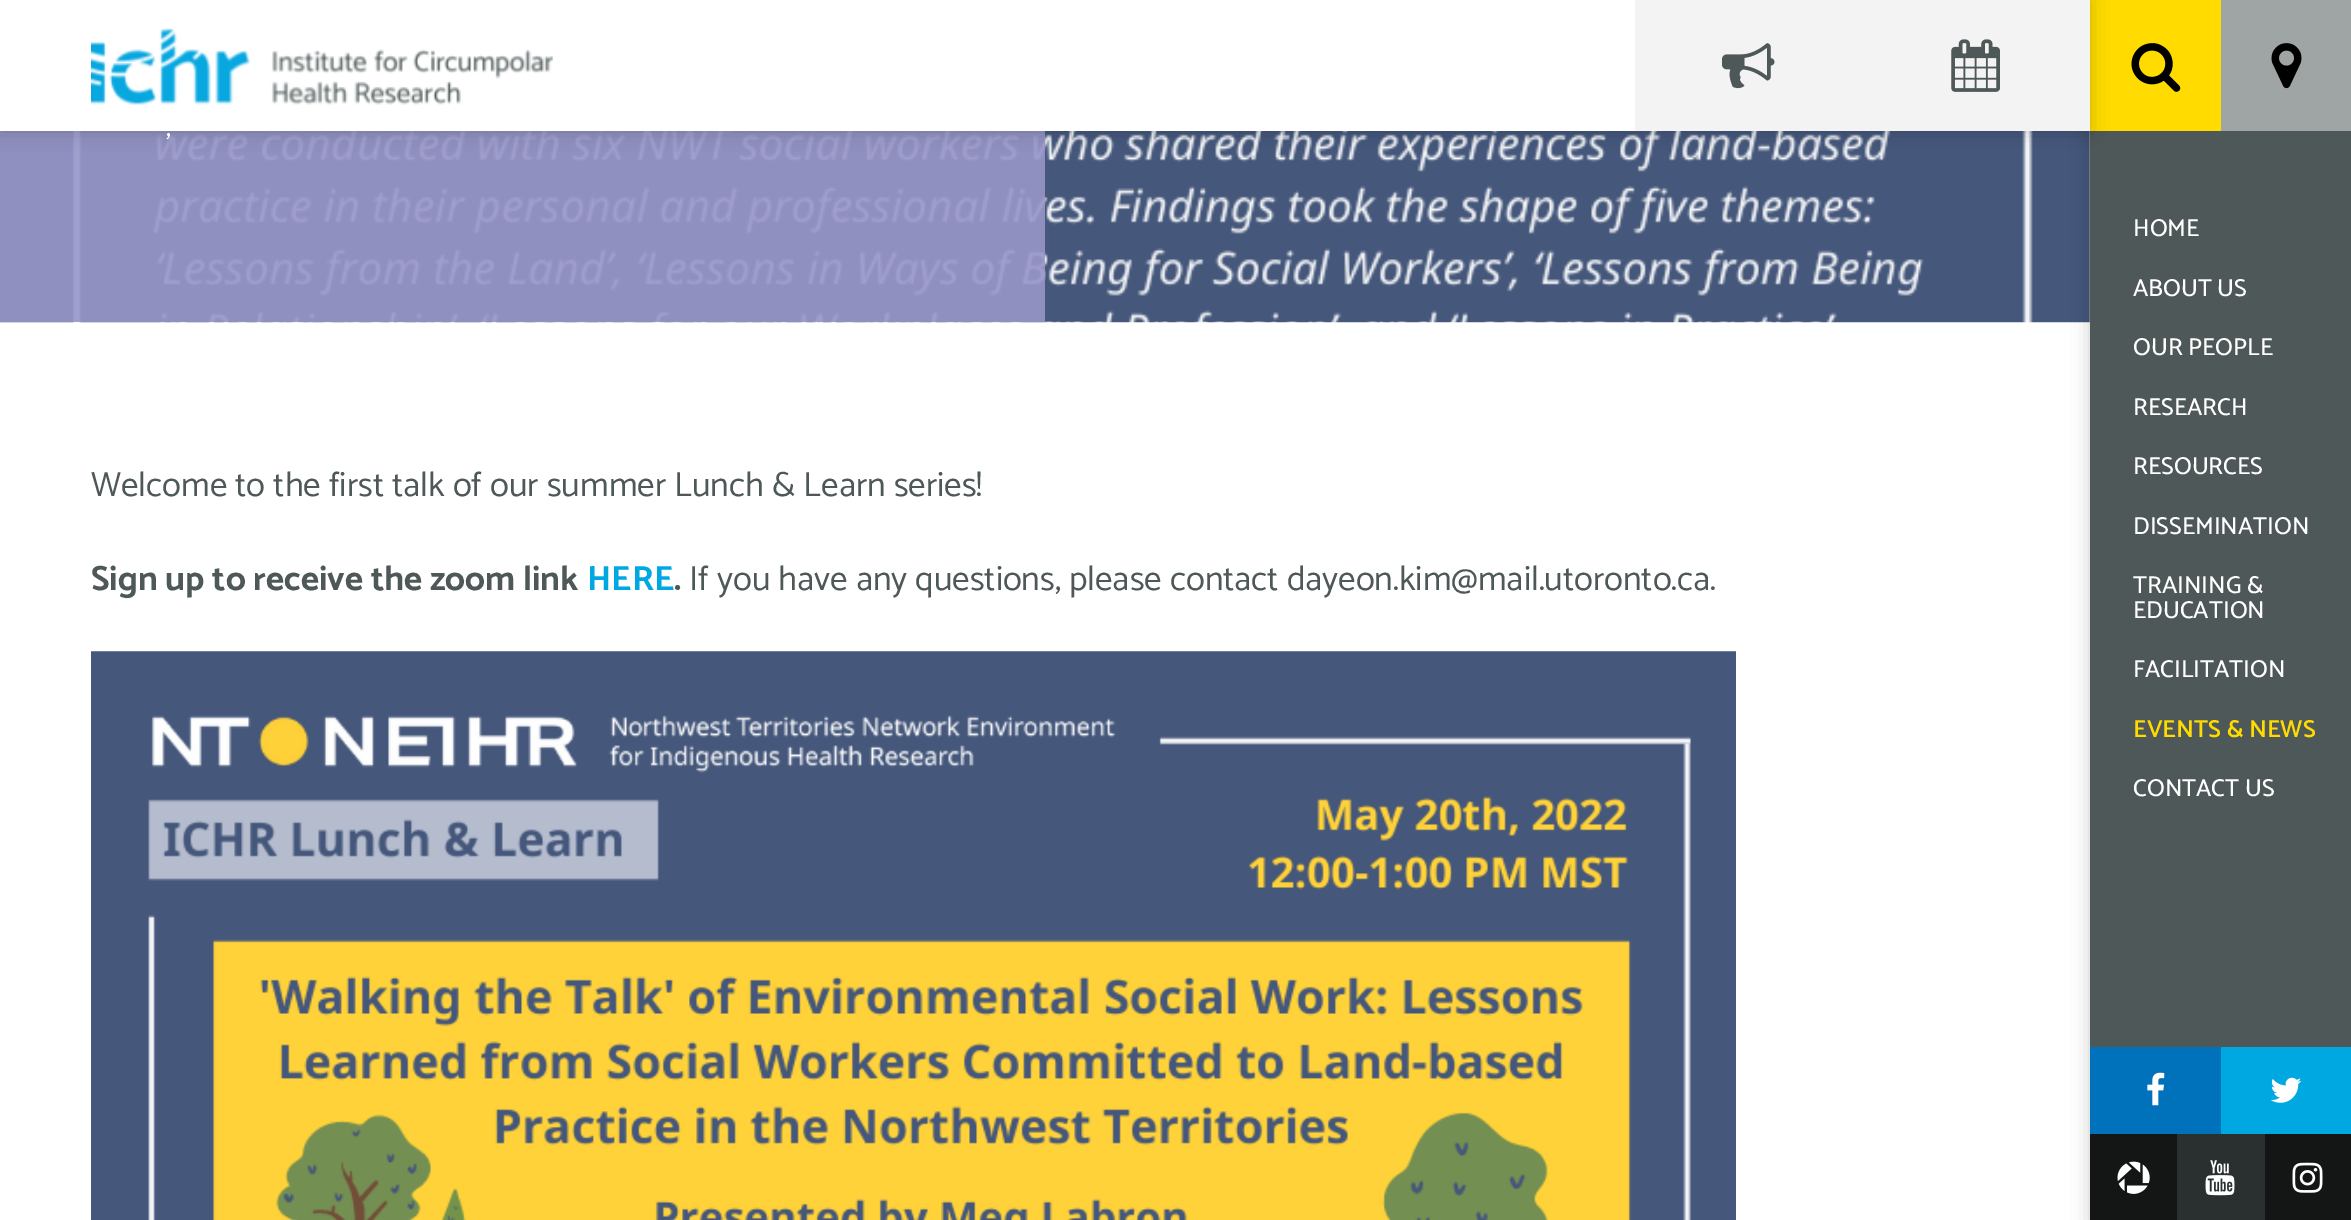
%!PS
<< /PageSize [2351 1220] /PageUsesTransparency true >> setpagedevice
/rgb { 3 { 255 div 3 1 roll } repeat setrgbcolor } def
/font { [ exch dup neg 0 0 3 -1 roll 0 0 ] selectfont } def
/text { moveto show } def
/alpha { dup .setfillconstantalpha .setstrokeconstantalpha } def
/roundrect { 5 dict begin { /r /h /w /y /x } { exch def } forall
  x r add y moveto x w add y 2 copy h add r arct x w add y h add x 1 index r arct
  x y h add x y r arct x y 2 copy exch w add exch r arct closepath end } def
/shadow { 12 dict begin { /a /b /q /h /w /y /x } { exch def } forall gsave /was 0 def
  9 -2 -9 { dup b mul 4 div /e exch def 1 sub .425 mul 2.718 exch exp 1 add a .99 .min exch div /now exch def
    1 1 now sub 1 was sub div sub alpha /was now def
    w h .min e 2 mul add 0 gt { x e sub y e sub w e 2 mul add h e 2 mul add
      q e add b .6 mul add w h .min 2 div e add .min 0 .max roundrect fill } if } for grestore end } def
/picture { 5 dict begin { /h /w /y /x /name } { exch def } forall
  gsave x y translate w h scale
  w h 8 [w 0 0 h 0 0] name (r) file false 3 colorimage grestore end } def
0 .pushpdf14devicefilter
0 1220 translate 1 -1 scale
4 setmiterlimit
255 255 255 rgb
0 0 2351 1220 rectfill
184 188 189 rgb
2089 131 1 191 rectfill
(img_04.rgb) 0 131 2090 192 picture
0.9 alpha
151 149 200 rgb
0 131 1045 191 rectfill
1 alpha
0 0 0 rgb
2090 0 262 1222 0 9 0.2 shadow
78 88 89 rgb
2090 131 261 916 rectfill
255 219 0 rgb
2090 0 131 131 rectfill
0 0 0 rgb
0 0 2090 131 0 9 0.2 shadow
255 255 255 rgb
0 0 1635 131 rectfill
(img_01.rgb) 91 28 462 77 picture
243 243 243 rgb
1635 0 455 131 rectfill
(img_02.rgb) 1722 43 53 46 picture
(img_03.rgb) 1951 39 49 53 picture
(img_05.rgb) 91 651 1645 569 picture
(img_06.rgb) 2131 43 50 49 picture
159 165 165 rgb
2221 0 130 131 rectfill
(img_07.rgb) 2271 43 31 46 picture
20 22 22 rgb
2090 1134 261 86 rectfill
0 114 188 rgb
2090 1047 131 87 rectfill
(img_08.rgb) 2147 1072 18 34 picture
0 168 226 rgb
2221 1047 130 87 rectfill
(img_09.rgb) 2271 1077 31 26 picture
(img_10.rgb) 2117 1161 33 33 picture
42 48 48 rgb
2177 1134 88 86 rectfill
(img_11.rgb) 2205 1160 30 36 picture
(img_12.rgb) 2292 1162 31 31 picture
/Catamaran-Regular 28 font
255 255 255 rgb
(,) 166 136 text
/Catamaran-Regular 35 font
78 88 89 rgb
(Welcome to the first talk of our summer Lunch & Learn series!) 91 496 text
/Catamaran-Bold 35 font
(Sign up to receive the zoom link) 91 590 text
0 168 226 rgb
(HERE) 587 590 text
78 88 89 rgb
(.) 674 590 text
/Catamaran-Regular 35 font
(If you have any questions, please contact dayeon.kim@mail.utoronto.ca.) 689 590 text
/Catamaran-Medium 24.5 font
255 255 255 rgb
(HOME) 2133 236 text
(ABOUT US) 2133 296 text
(OUR PEOPLE) 2133 355 text
(RESEARCH) 2133 415 text
(RESOURCES) 2133 474 text
(DISSEMINATION) 2133 534 text
(TRAINING &) 2133 593 text
(EDUCATION) 2133 618 text
(FACILITATION) 2133 677 text
/Catamaran-SemiBold 24.5 font
255 219 0 rgb
(EVENTS & NEWS) 2133 737 text
/Catamaran-Medium 24.5 font
255 255 255 rgb
(CONTACT US) 2133 796 text
.poppdf14devicefilter showpage
